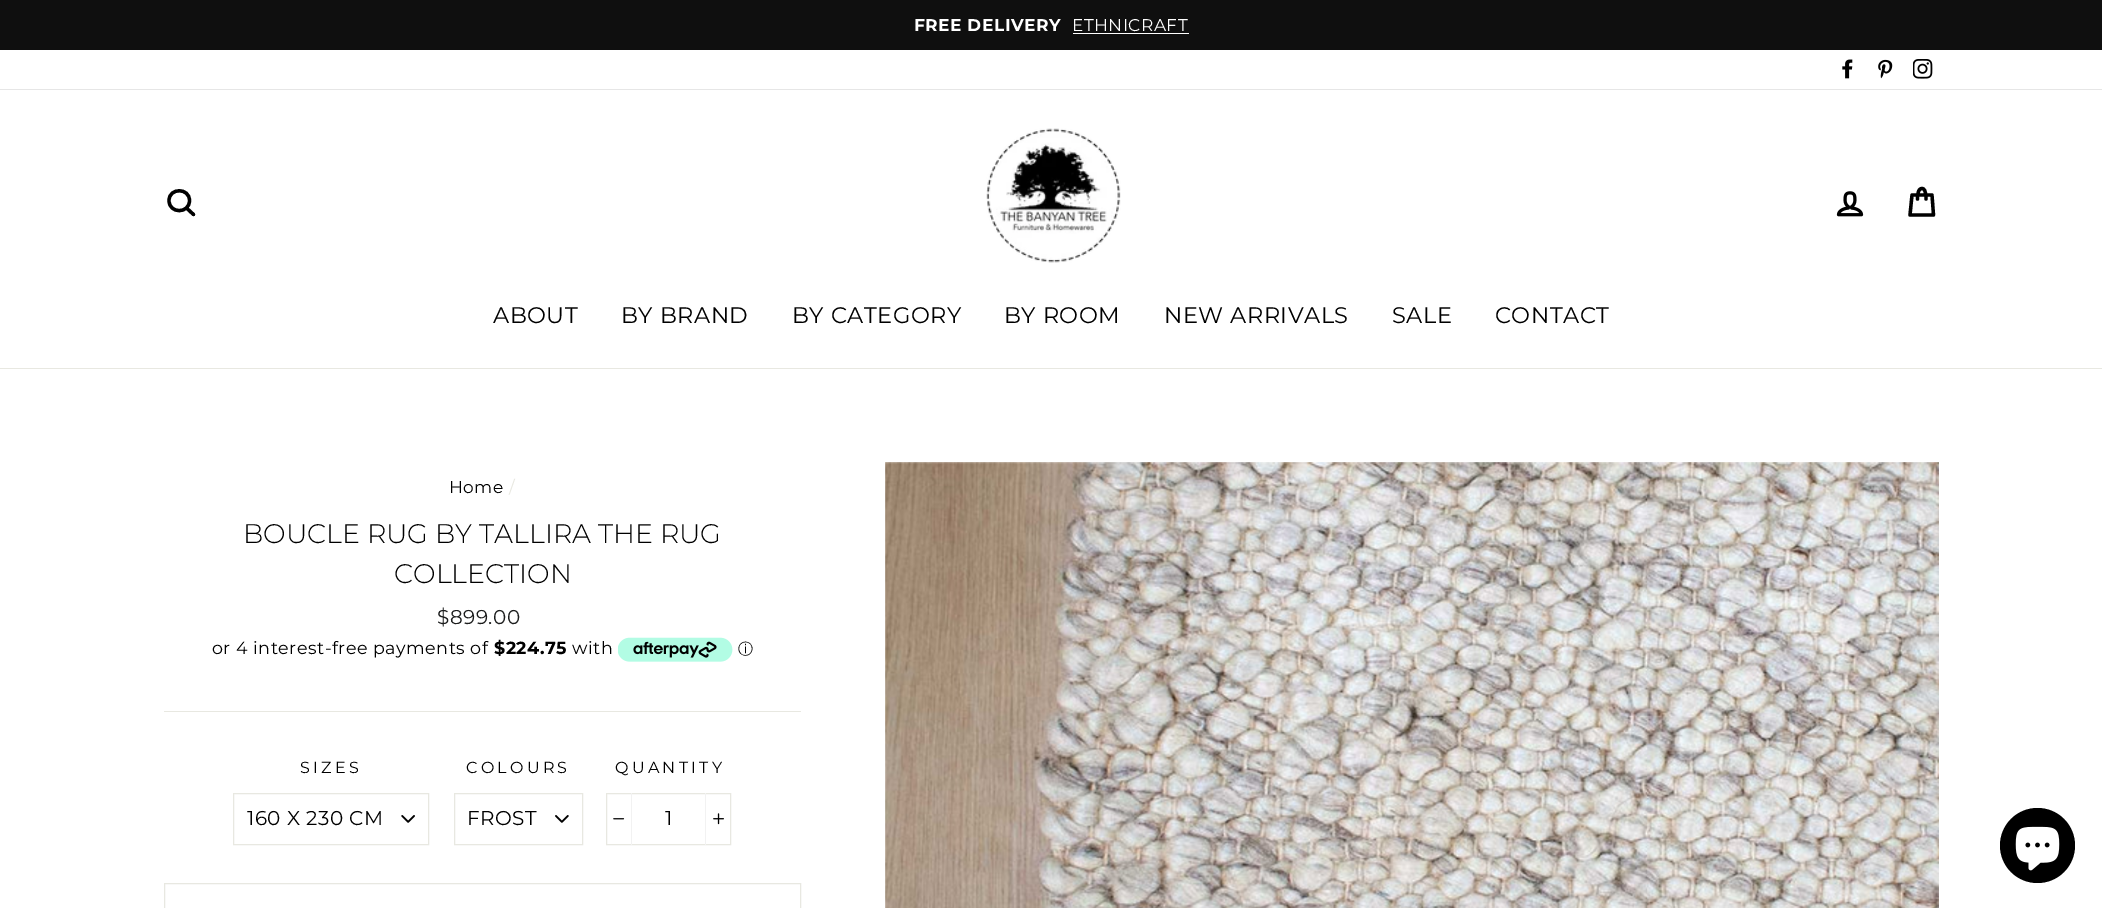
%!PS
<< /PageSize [2102 908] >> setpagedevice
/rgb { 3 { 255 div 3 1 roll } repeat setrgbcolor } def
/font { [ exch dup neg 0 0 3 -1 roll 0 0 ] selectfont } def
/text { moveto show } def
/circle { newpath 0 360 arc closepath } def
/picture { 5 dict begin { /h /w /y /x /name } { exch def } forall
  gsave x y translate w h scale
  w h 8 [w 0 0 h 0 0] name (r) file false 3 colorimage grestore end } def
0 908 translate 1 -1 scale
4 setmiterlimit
255 255 255 rgb
0 0 2102 908 rectfill
15 15 15 rgb
0 0 2102 50 rectfill
255 255 255 rgb
1073 33 116 1 rectfill
(img_01.rgb) 1842 59 11 20 picture
(img_02.rgb) 1878 59 15 20 picture
(img_03.rgb) 1913 59 20 20 picture
230 230 230 rgb
0 89 2102 1 rectfill
232 232 225 rgb
0 368 2102 1 rectfill
0 0 0 rgb
3.3 setlinewidth
1 setlinecap
1 setlinejoin
189.5 200.5 moveto 0 13.5 -20.5 13.5 -20.5 0 rcurveto 0 -13 20.5 -13 20.5 0 rcurveto closepath 193.5 214.5 moveto -7 -6.5 rlineto stroke
(img_04.rgb) 986 128 135 135 picture
(img_05.rgb) 1836 191 28 26 picture
1917.5 199 moveto 0 -8.5 2 -10.5 4.5 -10.5 rcurveto 2 0 4 2 4 10.5 rcurveto 1912 195 moveto 20 0 rlineto 1.5 20 rlineto -23.5 0 rlineto closepath stroke
(img_06.rgb) 618 637 115 25 picture
232 232 225 rgb
164 711 637 1 rectfill
(img_07.rgb) 401 815 14 8 picture
1 setlinewidth
0 setlinecap
0 setlinejoin
233.5 793.5 195 51 rectstroke
(img_08.rgb) 555 815 14 8 picture
454.5 793.5 128 51 rectstroke
606.5 793.5 124 51 rectstroke
242 242 242 rgb
631 793 1 52 rectfill
(img_09.rgb) 613 818 12 2 picture
705 793 1 52 rectfill
(img_10.rgb) 713 813 11 12 picture
232 232 225 rgb
164.5 883.5 636 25 rectstroke
(img_11.rgb) 885 462 1054 446 picture
0 0 0 rgb
2037.5 845.5 37.5 circle fill
(img_12.rgb) 2015 826 45 45 picture
/Montserrat-Bold 17 font
255 255 255 rgb
914 31 moveto 0.5 0 (FREE DELIVERY) ashow
/Montserrat-Regular 17 font
1072 31 moveto 0.5 0 (ETHNICRAFT) ashow
/Montserrat-Regular 22.5 font
0 0 0 rgb
493 323 moveto 0.5 0 (ABOUT) ashow
621 323 moveto 0.5 0 (BY BRAND) ashow
792 323 moveto 0.5 0 (BY CATEGORY) ashow
1004 323 moveto 0.5 0 (BY ROOM) ashow
1164 323 moveto 0.5 0 (NEW ARRIVALS) ashow
1392 323 moveto 0.5 0 (SALE) ashow
1495 323 moveto 0.5 0 (CONTACT) ashow
/Montserrat-Regular 17 font
449 493 moveto 0.5 0 (Home) ashow
232 232 225 rgb
509 493 moveto 0.5 0 (/) ashow
/Montserrat-Light 26.9 font
0 0 0 rgb
(BOUCLE RUG BY TALLIRA THE RUG) 243 543 text
(COLLECTION) 394 583 text
/Montserrat-Regular 20 font
28 29 29 rgb
437 624 moveto 0.5 0 ($899.00) ashow
/Montserrat-Regular 17.5 font
0 0 0 rgb
212 654 moveto 0.5 0 (or 4 interest-free payments of) ashow
/Montserrat-Bold 17.5 font
494 654 moveto 0.5 0 ($224.75) ashow
/Montserrat-Regular 17.5 font
572 654 moveto 0.5 0 (with) ashow
/WenQuanYiZenHei-Medium 15 font
(ⓘ) 738 654 text
/Montserrat-Regular 16 font
300 773 moveto 3.25 0 (SIZES) ashow
/Montserrat-Regular 20 font
247 825 moveto 0.5 0 (160 X 230 CM) ashow
/Montserrat-Regular 16 font
466 773 moveto 3.25 0 (COLOURS) ashow
/Montserrat-Regular 20 font
467 825 moveto 0.5 0 (FROST) ashow
/Montserrat-Regular 16 font
615 773 moveto 3.25 0 (QUANTITY) ashow
/Montserrat-Regular 20 font
665 825 moveto 0.5 0 (1) ashow
showpage
